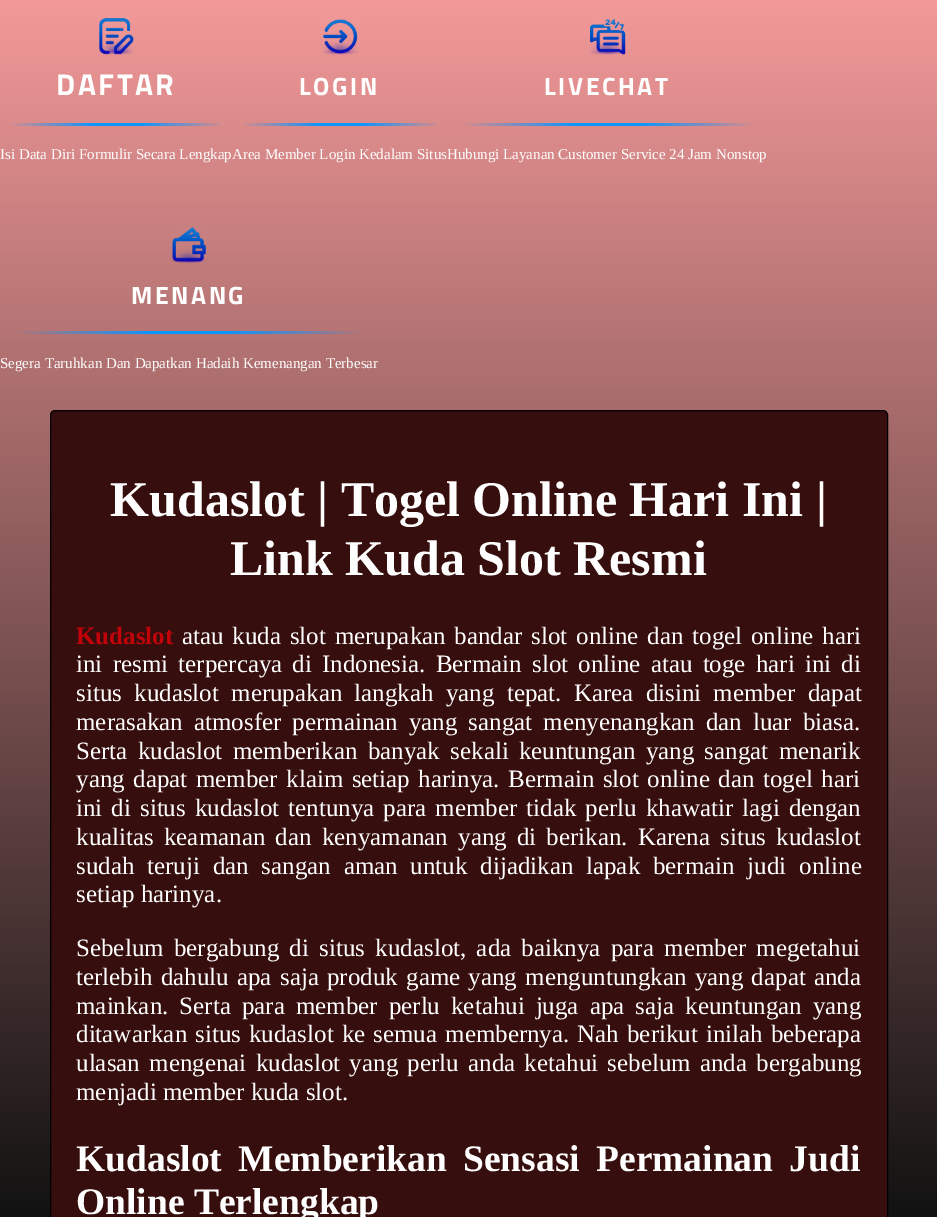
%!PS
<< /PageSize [937 1217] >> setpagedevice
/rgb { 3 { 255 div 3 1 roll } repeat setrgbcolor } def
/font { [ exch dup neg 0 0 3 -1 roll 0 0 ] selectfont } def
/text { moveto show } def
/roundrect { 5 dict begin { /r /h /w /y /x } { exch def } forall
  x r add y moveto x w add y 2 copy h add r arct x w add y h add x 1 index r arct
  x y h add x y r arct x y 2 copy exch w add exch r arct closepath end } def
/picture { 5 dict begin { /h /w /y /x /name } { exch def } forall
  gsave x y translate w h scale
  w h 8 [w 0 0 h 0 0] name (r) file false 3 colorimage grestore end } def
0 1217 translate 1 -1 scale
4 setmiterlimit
255 255 255 rgb
0 0 937 1217 rectfill
gsave 0 0 moveto 937 0 rlineto 0 1217 rlineto -937 0 rlineto closepath clip newpath
<< /ShadingType 2 /ColorSpace /DeviceRGB /Coords [469 0 469 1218] /Extend [true true] /Function << /FunctionType 2 /Domain [0 1] /C0 [0.953 0.6 0.6] /C1 [0.071 0.071 0.071] /N 1 >> >> shfill grestore
(img_01.rgb) 98 18 36 37 picture
gsave 10 123 moveto 213 0 rlineto 0 3 rlineto -213 0 rlineto closepath clip newpath
<< /ShadingType 2 /ColorSpace /DeviceRGB /Coords [0 124 233 124] /Extend [true true] /Function << /FunctionType 3 /Domain [0 1] /Functions [<< /FunctionType 2 /Domain [0 1] /C0 [0.863 0.545 0.545] /C1 [0.863 0.545 0.545] /N 1 >> << /FunctionType 2 /Domain [0 1] /C0 [0.863 0.545 0.545] /C1 [0.043 0.584 1] /N 1 >> << /FunctionType 2 /Domain [0 1] /C0 [0.043 0.584 1] /C1 [0.043 0.584 1] /N 1 >> << /FunctionType 2 /Domain [0 1] /C0 [0.043 0.584 1] /C1 [0.863 0.545 0.545] /N 1 >> << /FunctionType 2 /Domain [0 1] /C0 [0.863 0.545 0.545] /C1 [0.863 0.545 0.545] /N 1 >>] /Bounds [0.04 0.4 0.6 0.96] /Encode [0 1 0 1 0 1 0 1 0 1] >> >> shfill grestore
(img_02.rgb) 322 19 36 36 picture
gsave 243 123 moveto 195 0 rlineto 0 3 rlineto -195 0 rlineto closepath clip newpath
<< /ShadingType 2 /ColorSpace /DeviceRGB /Coords [233 124 448 124] /Extend [true true] /Function << /FunctionType 3 /Domain [0 1] /Functions [<< /FunctionType 2 /Domain [0 1] /C0 [0.863 0.545 0.545] /C1 [0.863 0.545 0.545] /N 1 >> << /FunctionType 2 /Domain [0 1] /C0 [0.863 0.545 0.545] /C1 [0.043 0.584 1] /N 1 >> << /FunctionType 2 /Domain [0 1] /C0 [0.043 0.584 1] /C1 [0.043 0.584 1] /N 1 >> << /FunctionType 2 /Domain [0 1] /C0 [0.043 0.584 1] /C1 [0.863 0.545 0.545] /N 1 >> << /FunctionType 2 /Domain [0 1] /C0 [0.863 0.545 0.545] /C1 [0.863 0.545 0.545] /N 1 >>] /Bounds [0.04 0.4 0.6 0.96] /Encode [0 1 0 1 0 1 0 1 0 1] >> >> shfill grestore
(img_03.rgb) 589 19 37 36 picture
gsave 462 123 moveto 292 0 rlineto 0 3 rlineto -292 0 rlineto closepath clip newpath
<< /ShadingType 2 /ColorSpace /DeviceRGB /Coords [448 124 768 124] /Extend [true true] /Function << /FunctionType 3 /Domain [0 1] /Functions [<< /FunctionType 2 /Domain [0 1] /C0 [0.863 0.545 0.545] /C1 [0.863 0.545 0.545] /N 1 >> << /FunctionType 2 /Domain [0 1] /C0 [0.863 0.545 0.545] /C1 [0.043 0.584 1] /N 1 >> << /FunctionType 2 /Domain [0 1] /C0 [0.043 0.584 1] /C1 [0.043 0.584 1] /N 1 >> << /FunctionType 2 /Domain [0 1] /C0 [0.043 0.584 1] /C1 [0.863 0.545 0.545] /N 1 >> << /FunctionType 2 /Domain [0 1] /C0 [0.863 0.545 0.545] /C1 [0.863 0.545 0.545] /N 1 >>] /Bounds [0.04 0.4 0.6 0.96] /Encode [0 1 0 1 0 1 0 1 0 1] >> >> shfill grestore
(img_04.rgb) 170 227 37 37 picture
gsave 17 331 moveto 345 0 rlineto 0 3 rlineto -345 0 rlineto closepath clip newpath
<< /ShadingType 2 /ColorSpace /DeviceRGB /Coords [0 333 379 333] /Extend [true true] /Function << /FunctionType 3 /Domain [0 1] /Functions [<< /FunctionType 2 /Domain [0 1] /C0 [0.714 0.455 0.455] /C1 [0.714 0.455 0.455] /N 1 >> << /FunctionType 2 /Domain [0 1] /C0 [0.714 0.455 0.455] /C1 [0.043 0.584 1] /N 1 >> << /FunctionType 2 /Domain [0 1] /C0 [0.043 0.584 1] /C1 [0.043 0.584 1] /N 1 >> << /FunctionType 2 /Domain [0 1] /C0 [0.043 0.584 1] /C1 [0.714 0.455 0.455] /N 1 >> << /FunctionType 2 /Domain [0 1] /C0 [0.714 0.455 0.455] /C1 [0.714 0.455 0.455] /N 1 >>] /Bounds [0.04 0.4 0.6 0.96] /Encode [0 1 0 1 0 1 0 1 0 1] >> >> shfill grestore
55 14 14 rgb
50.5 410.5 837 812 4.5 roundrect gsave fill grestore
0 0 0 rgb
stroke
/TitilliumWeb-Bold 30 font
255 254 254 rgb
56 95 moveto 2.5 0 (DAFTAR) ashow
/LiberationSerif-Regular 15 font
(Isi Data Diri Formulir Secara LengkapArea Member Login Kedalam SitusHubungi Layanan Customer Service 24 Jam Nonstop) 0 159 text
/TitilliumWeb-Bold 25 font
299 95 moveto 2.5 0 (LOGIN) ashow
544 95 moveto 2.5 0 (LIVECHAT) ashow
131 304 moveto 2.5 0 (MENANG) ashow
/LiberationSerif-Regular 15 font
(Segera Taruhkan Dan Dapatkan Hadaih Kemenangan Terbesar) 0 368 text
/LiberationSerif-Bold 50 font
(Kudaslot | Togel Online Hari Ini |) 110 516 text
(Link Kuda Slot Resmi) 230 575 text
/LiberationSerif-Bold 25 font
193 2 9 rgb
(Kudaslot) 76 644 text
/LiberationSerif-Regular 25 font
255 254 254 rgb
182 644 moveto 2.5 0 32 (atau kuda slot merupakan bandar slot online dan togel online hari) widthshow
76 672 moveto 3.9 0 32 (ini resmi terpercaya di Indonesia. Bermain slot online atau toge hari ini di) widthshow
76 701 moveto 6 0 32 (situs kudaslot merupakan langkah yang tepat. Karea disini member dapat) widthshow
76 730 moveto 4.75 0 32 (merasakan atmosfer permainan yang sangat menyenangkan dan luar biasa.) widthshow
76 759 moveto 4 0 32 (Serta kudaslot memberikan banyak sekali keuntungan yang sangat menarik) widthshow
76 787 moveto 2.25 0 32 (yang dapat member klaim setiap harinya. Bermain slot online dan togel hari) widthshow
76 816 moveto 2.75 0 32 (ini di situs kudaslot tentunya para member tidak perlu khawatir lagi dengan) widthshow
76 845 moveto 3.9 0 32 (kualitas keamanan dan kenyamanan yang di berikan. Karena situs kudaslot) widthshow
76 874 moveto 6.5 0 32 (sudah teruji dan sangan aman untuk dijadikan lapak bermain judi online) widthshow
(setiap harinya.) 76 902 text
76 956 moveto 4 0 32 (Sebelum bergabung di situs kudaslot, ada baiknya para member megetahui) widthshow
76 985 moveto 2 0 32 (terlebih dahulu apa saja produk game yang menguntungkan yang dapat anda) widthshow
76 1014 moveto 4.75 0 32 (mainkan. Serta para member perlu ketahui juga apa saja keuntungan yang) widthshow
76 1042 moveto 1.75 0 32 (ditawarkan situs kudaslot ke semua membernya. Nah berikut inilah beberapa) widthshow
76 1071 moveto 3 0 32 (ulasan mengenai kudaslot yang perlu anda ketahui sebelum anda bergabung) widthshow
(menjadi member kuda slot.) 76 1100 text
/LiberationSerif-Bold 37.5 font
76 1171 moveto 7 0 32 (Kudaslot Memberikan Sensasi Permainan Judi) widthshow
(Online Terlengkap) 76 1214 text
showpage
